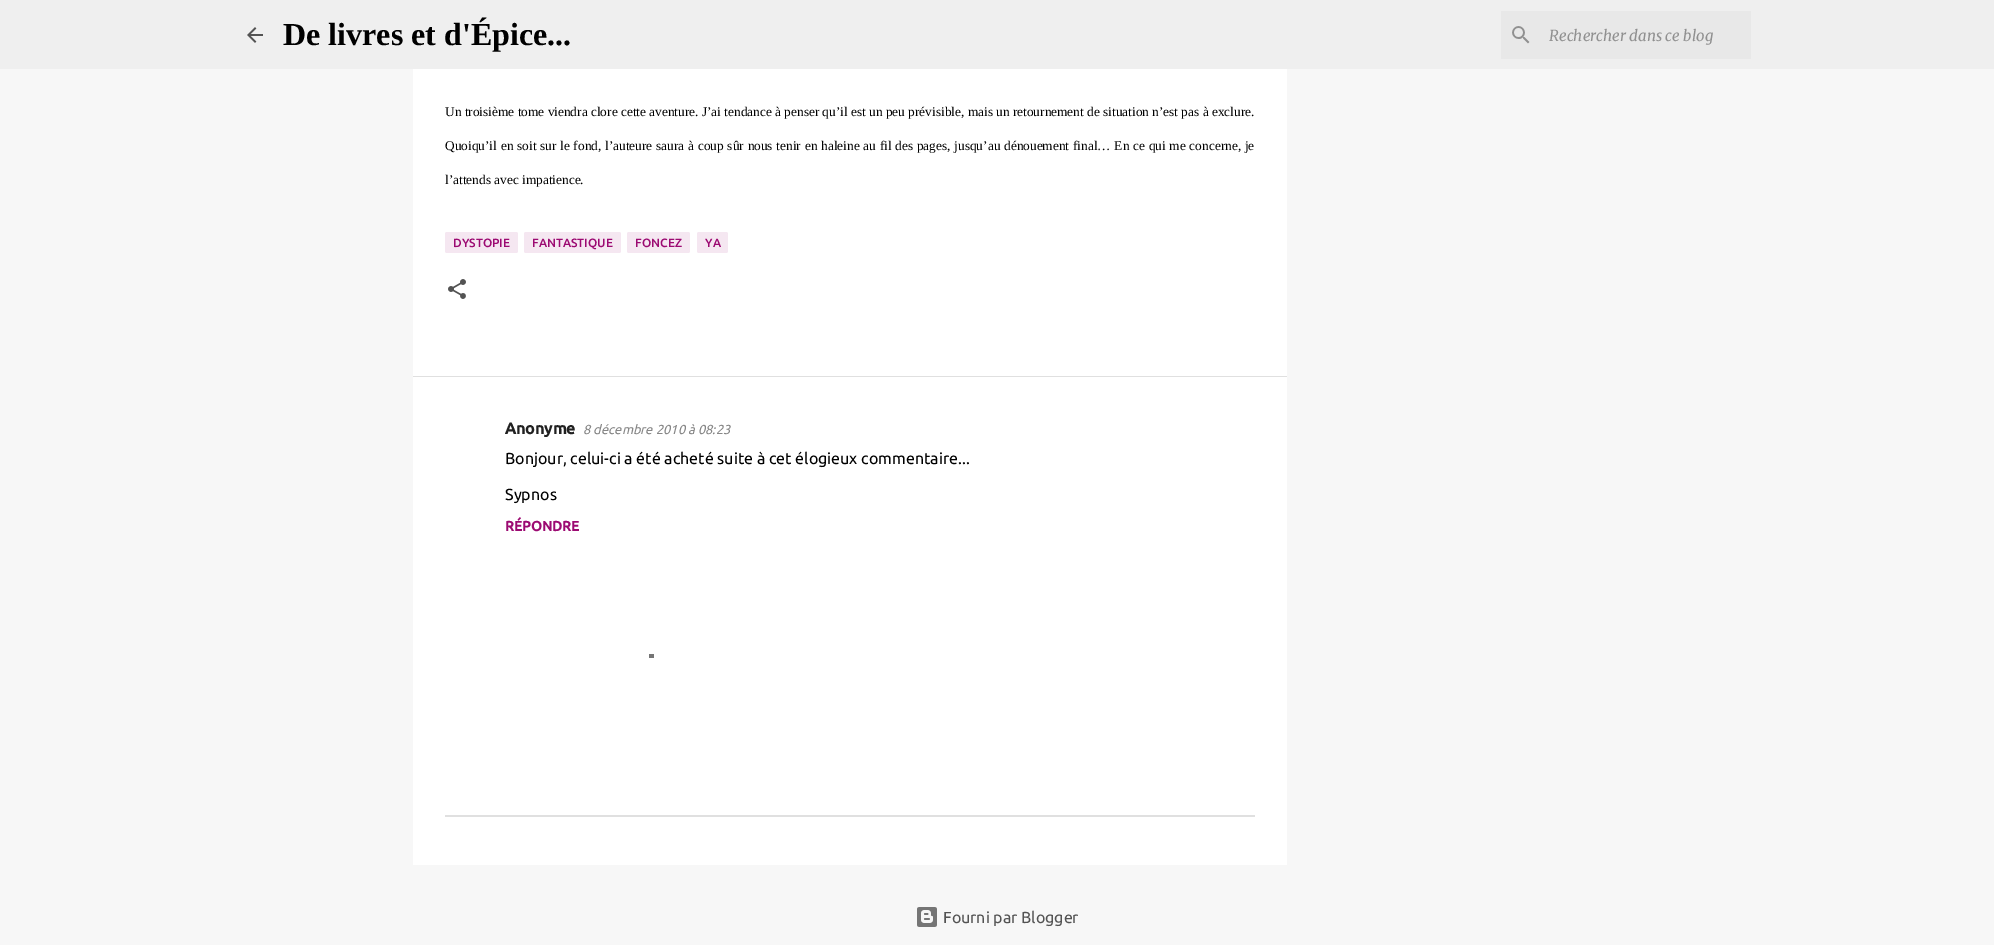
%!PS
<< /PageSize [1994 945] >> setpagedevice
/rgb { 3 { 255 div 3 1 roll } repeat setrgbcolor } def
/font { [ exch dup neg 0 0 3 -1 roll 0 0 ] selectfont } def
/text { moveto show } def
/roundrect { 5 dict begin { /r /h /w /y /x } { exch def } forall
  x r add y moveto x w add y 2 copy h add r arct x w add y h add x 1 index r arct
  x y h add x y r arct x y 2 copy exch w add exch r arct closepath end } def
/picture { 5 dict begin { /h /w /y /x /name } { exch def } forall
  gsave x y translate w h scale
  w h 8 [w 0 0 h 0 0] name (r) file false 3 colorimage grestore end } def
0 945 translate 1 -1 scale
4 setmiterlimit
247 247 247 rgb
0 0 1994 945 rectfill
239 239 239 rgb
0 0 1994 69 rectfill
(img_01.rgb) 247 27 16 16 picture
232 232 232 rgb
1501 11 250 48 rectfill
(img_02.rgb) 1512 26 18 18 picture
255 255 255 rgb
413 69 874 307 rectfill
245 231 241 rgb
445 232 73 21 2 roundrect fill
524 232 97 21 2 roundrect fill
627 232 63 21 2 roundrect fill
697 232 31 21 2 roundrect fill
(img_03.rgb) 448 279 18 20 picture
255 255 255 rgb
413 377 874 488 rectfill
224 224 224 rgb
413 376 874 1 rectfill
445 815 810 2 rectfill
(img_04.rgb) 917 907 20 20 picture
117 117 117 rgb
649 654 5 4 rectfill
/LiberationSerif-Bold 32 font
0 0 0 rgb
(De livres et d'Épice...) 283 45 text
/Merriweather-LightItalic 15 font
144 144 144 rgb
(Rechercher dans ce blog) 1549 41 text
/LiberationSerif-Regular 13.33 font
0 0 0 rgb
(Un troisième tome viendra clore cette aventure. J’ai tendance à penser qu’il est un peu prévisible, mais un retournement de situation n’est pas à exclure.) 445 116 text
445 150 moveto 0.45 0 32 (Quoiqu’il en soit sur le fond, l’auteure saura à coup sûr nous tenir en haleine au fil des pages, jusqu’au dénouement final… En ce qui me concerne, je) widthshow
(l’attends avec impatience.) 445 184 text
/Ubuntu-Medium 12 font
156 10 114 rgb
(DYSTOPIE) 453 247 text
(FANTASTIQUE) 532 247 text
(FONCEZ) 635 247 text
(YA) 705 247 text
/Ubuntu-Bold 16 font
33 33 33 rgb
(Anonyme) 505 434 text
/Ubuntu-Italic 13 font
135 135 135 rgb
(8 décembre 2010 à 08:23) 583 434 text
/Ubuntu-Regular 16 font
0 0 0 rgb
(Bonjour, celui-ci a été acheté suite à cet élogieux commentaire...) 505 464 text
(Sypnos) 505 500 text
/Ubuntu-Bold 14 font
156 10 114 rgb
(RÉPONDRE) 505 531 text
/Ubuntu-Regular 16 font
83 83 83 rgb
(Fourni par Blogger) 943 923 text
showpage
